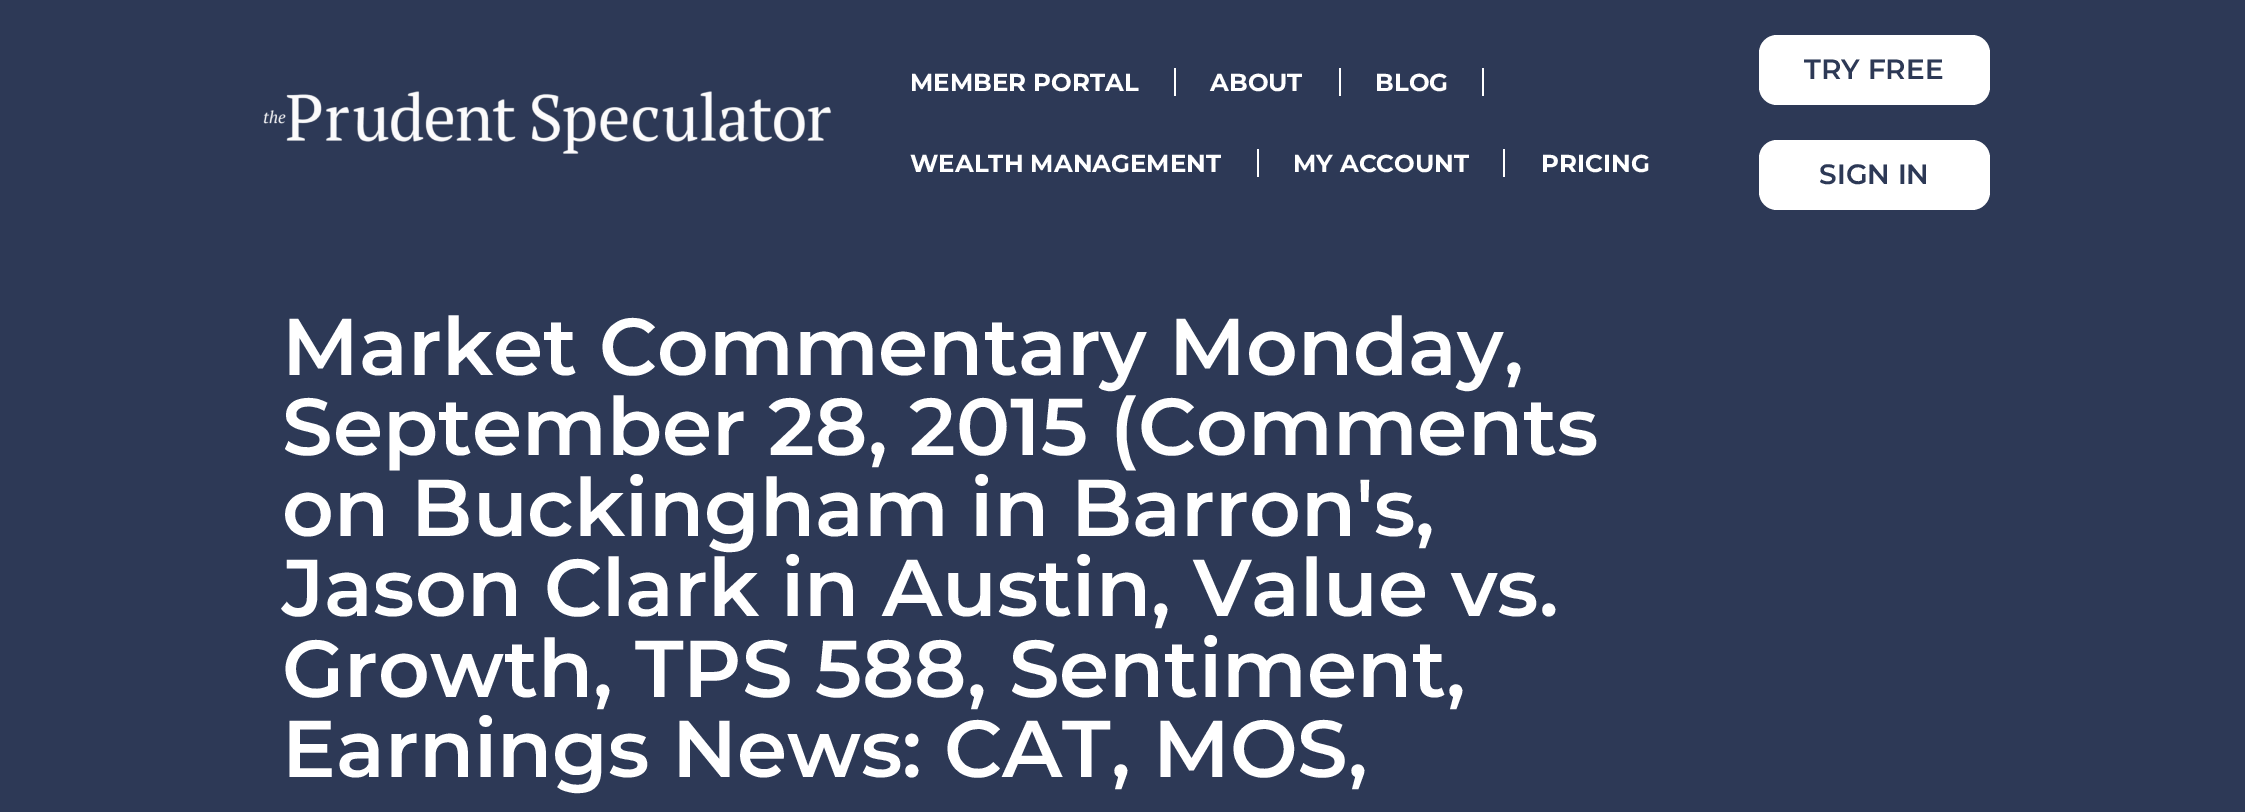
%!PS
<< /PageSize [2245 812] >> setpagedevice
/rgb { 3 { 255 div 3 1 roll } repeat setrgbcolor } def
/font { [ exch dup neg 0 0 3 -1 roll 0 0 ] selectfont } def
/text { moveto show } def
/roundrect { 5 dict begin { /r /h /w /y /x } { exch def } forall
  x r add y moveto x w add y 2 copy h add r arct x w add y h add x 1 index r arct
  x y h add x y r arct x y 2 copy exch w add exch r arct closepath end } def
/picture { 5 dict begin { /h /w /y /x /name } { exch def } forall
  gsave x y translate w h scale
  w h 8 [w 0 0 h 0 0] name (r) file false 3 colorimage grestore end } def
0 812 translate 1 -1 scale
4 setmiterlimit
45 57 86 rgb
0 0 2245 812 rectfill
(img_01.rgb) 263 91 569 63 picture
255 255 255 rgb
1174 68 2 28 rectfill
1339 68 2 28 rectfill
1482 68 2 28 rectfill
1257 149 2 28 rectfill
1503 149 2 28 rectfill
1759 35 231 70 18 roundrect fill
1759 140 231 70 18 roundrect fill
/Montserrat-Bold 24.5 font
(MEMBER PORTAL) 910 91 text
(ABOUT) 1210 91 text
(BLOG) 1375 91 text
(WEALTH MANAGEMENT) 910 172 text
(MY ACCOUNT) 1293 172 text
(PRICING) 1541 172 text
/Montserrat-SemiBold 28 font
45 57 86 rgb
(TRY FREE) 1804 79 text
(SIGN IN) 1819 184 text
/Montserrat-SemiBold 80.5 font
255 255 255 rgb
(Market Commentary Monday,) 282 375 text
(September 28, 2015 \(Comments) 282 455 text
(on Buckingham in Barron's,) 282 536 text
(Jason Clark in Austin, Value vs.) 282 616 text
(Growth, TPS 588, Sentiment,) 282 697 text
(Earnings News: CAT, MOS,) 282 777 text
showpage
